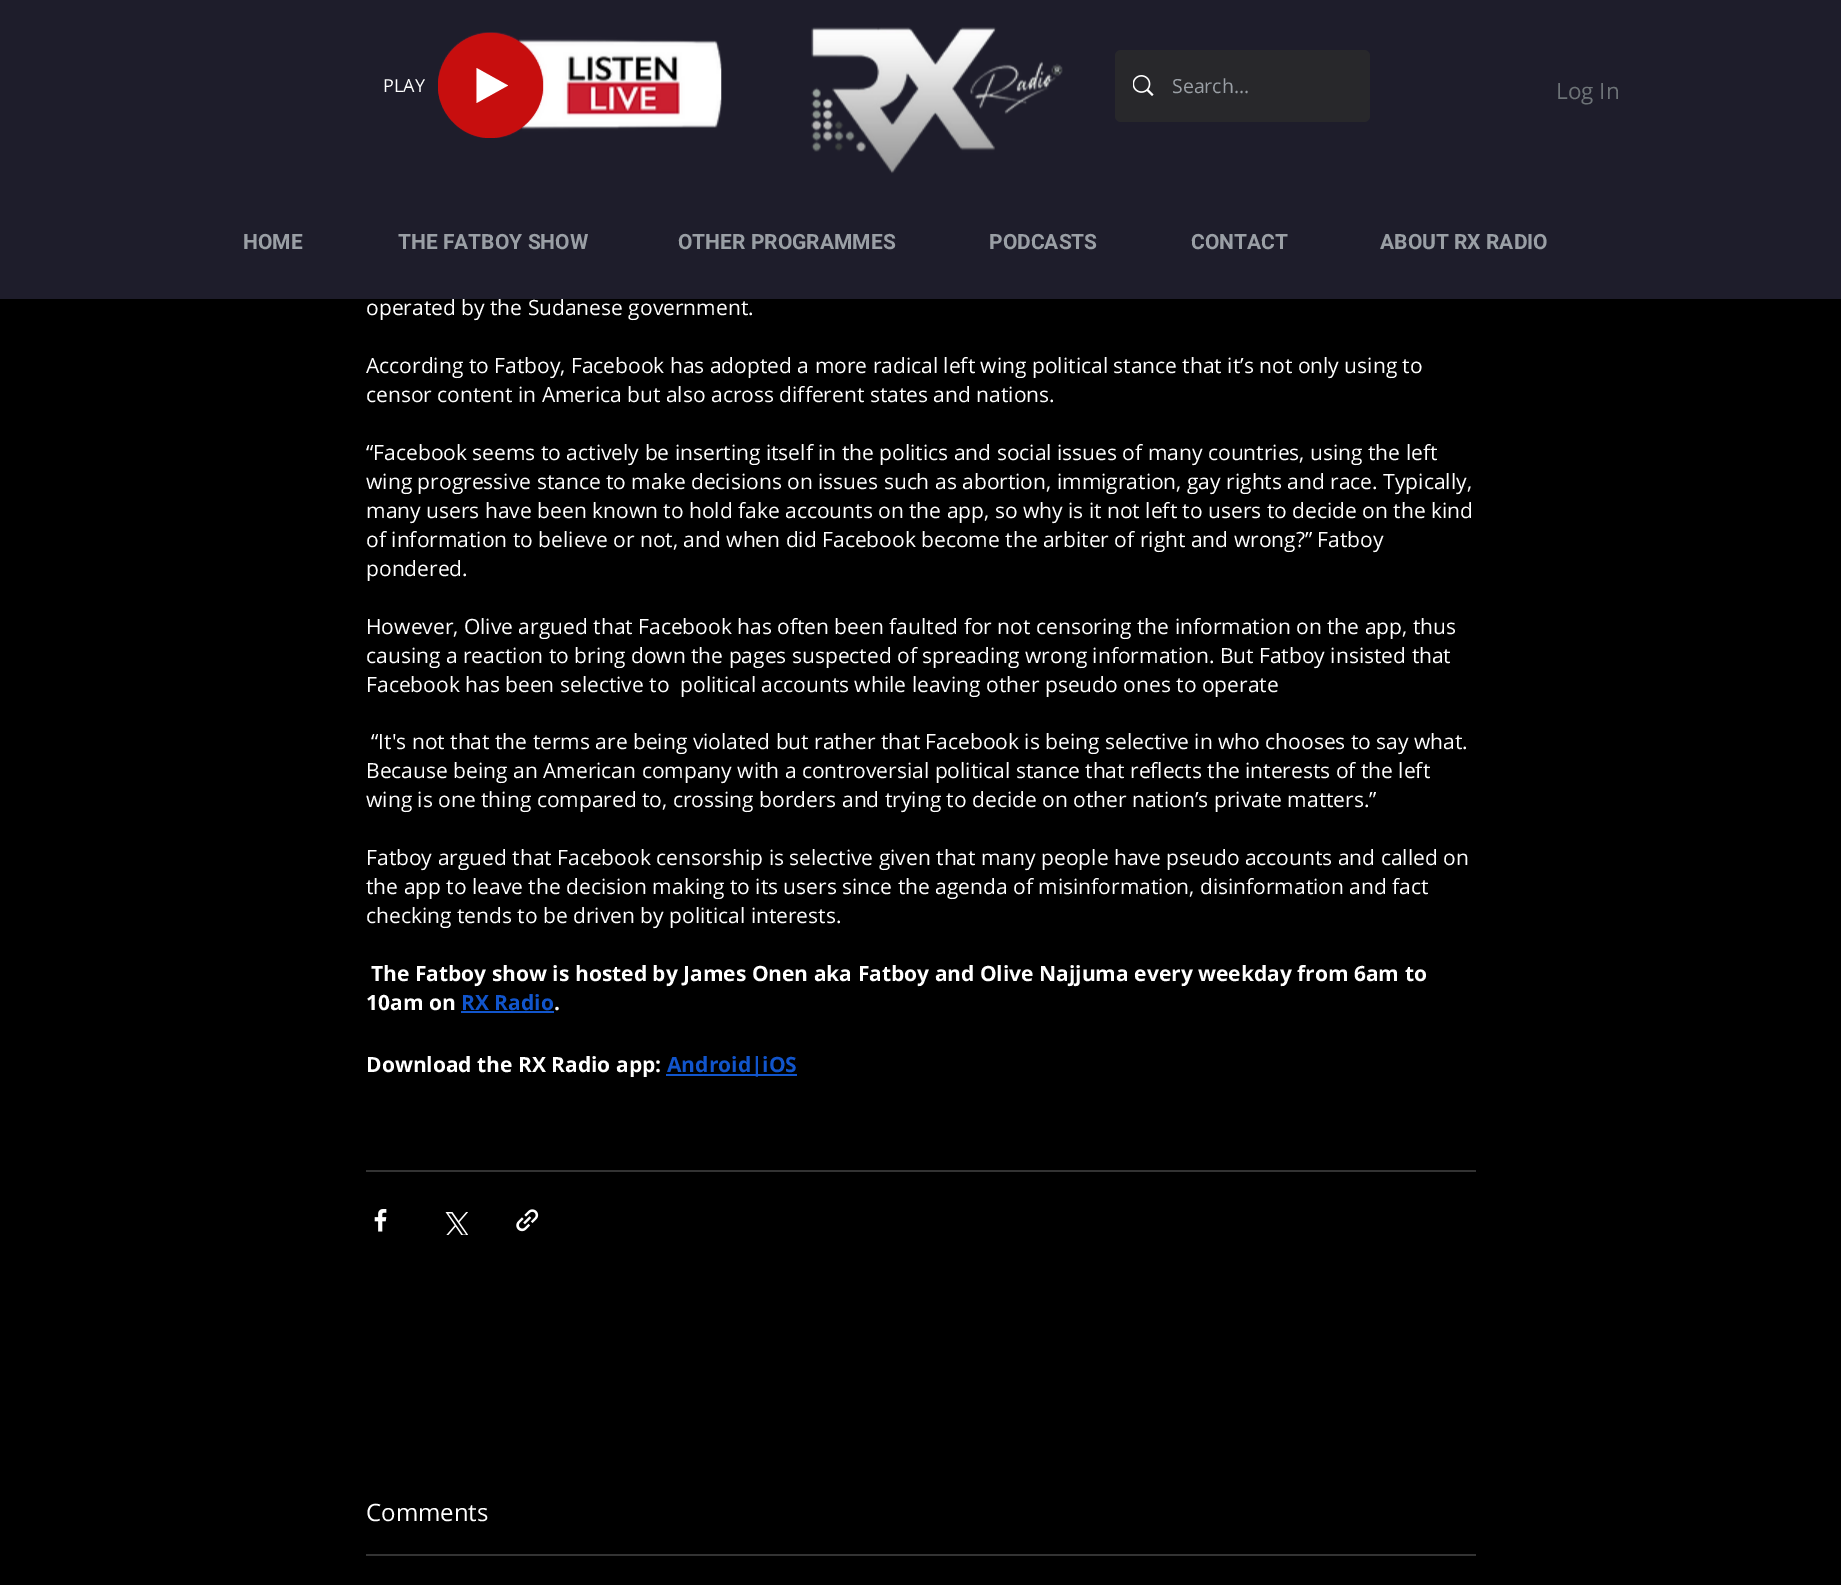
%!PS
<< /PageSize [1841 1585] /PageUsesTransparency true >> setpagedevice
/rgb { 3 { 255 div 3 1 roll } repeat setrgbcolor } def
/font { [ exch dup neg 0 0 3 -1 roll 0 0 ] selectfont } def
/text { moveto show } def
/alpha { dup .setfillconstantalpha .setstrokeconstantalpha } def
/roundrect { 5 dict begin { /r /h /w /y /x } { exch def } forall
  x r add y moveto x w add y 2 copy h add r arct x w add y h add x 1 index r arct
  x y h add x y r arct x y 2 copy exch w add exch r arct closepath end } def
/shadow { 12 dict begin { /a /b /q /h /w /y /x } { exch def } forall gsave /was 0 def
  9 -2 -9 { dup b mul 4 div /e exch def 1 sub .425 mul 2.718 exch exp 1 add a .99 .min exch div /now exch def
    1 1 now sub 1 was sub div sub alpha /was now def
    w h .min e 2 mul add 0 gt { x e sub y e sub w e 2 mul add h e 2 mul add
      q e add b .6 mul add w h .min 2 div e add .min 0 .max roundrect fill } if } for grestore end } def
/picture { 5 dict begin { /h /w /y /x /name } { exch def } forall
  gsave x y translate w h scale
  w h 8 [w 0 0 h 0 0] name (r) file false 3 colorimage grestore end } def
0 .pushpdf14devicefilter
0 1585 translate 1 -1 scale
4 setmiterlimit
0 0 0 rgb
0 0 1841 1585 rectfill
0 0 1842 299 0 4 0.5 shadow
30 29 43 rgb
0 0 1841 299 rectfill
(img_01.rgb) 438 32 284 106 picture
(img_02.rgb) 811 27 252 147 picture
199 14 14 rgb
490 33 moveto -28 0 -52 24 -52 53 rcurveto 0 28 24 52 52 52 rcurveto 29 0 53 -24 53 -52 rcurveto 0 -29 -24 -53 -53 -53 rcurveto fill
255 255 255 rgb
476.5 103 moveto 0 -35 rlineto 31.5 17.5 rlineto closepath fill
40 40 43 rgb
1115 50 255 72 6 roundrect fill
(img_03.rgb) 1133 75 21 21 picture
17 85 204 rgb
461 1011 93 2 rectfill
666 1074 131 2 rectfill
51 51 51 rgb
366 1170 1110 2 rectfill
(img_04.rgb) 374 1209 13 23 picture
(img_05.rgb) 445 1212 23 23 picture
(img_06.rgb) 516 1209 23 23 picture
366 1554 1110 2 rectfill
/OpenSans-Regular 18 font
255 255 255 rgb
(PLAY) 383 92 text
/OpenSans-Regular 19.5 font
154 159 165 rgb
(Search...) 1172 93 text
/OpenSans-Regular 22.5 font
109 115 119 rgb
(Log In) 1556 99 text
/Roboto-Bold 21 font
154 159 165 rgb
(HOME) 243 249 text
(THE FATBOY SHOW) 398 249 text
(OTHER PROGRAMMES) 678 249 text
(PODCASTS) 989 249 text
(CONTACT) 1191 249 text
(ABOUT RX RADIO) 1380 249 text
/OpenSans-Regular 21 font
255 255 255 rgb
(operated by the Sudanese government.) 366 315 text
(According to Fatboy, Facebook has adopted a more radical left wing political stance that it’s not only using to) 366 373 text
(censor content in America but also across different states and nations.) 366 402 text
(“Facebook seems to actively be inserting itself in the politics and social issues of many countries, using the left) 366 460 text
(wing progressive stance to make decisions on issues such as abortion, immigration, gay rights and race. Typically,) 366 489 text
(many users have been known to hold fake accounts on the app, so why is it not left to users to decide on the kind) 366 518 text
(of information to believe or not, and when did Facebook become the arbiter of right and wrong?” Fatboy) 366 547 text
(pondered.) 366 576 text
(However, Olive argued that Facebook has often been faulted for not censoring the information on the app, thus) 366 634 text
(causing a reaction to bring down the pages suspected of spreading wrong information. But Fatboy insisted that) 366 663 text
(Facebook has been selective to  political accounts while leaving other pseudo ones to operate) 366 692 text
(“It's not that the terms are being violated but rather that Facebook is being selective in who chooses to say what.) 371 749 text
(Because being an American company with a controversial political stance that reflects the interests of the left) 366 778 text
(wing is one thing compared to, crossing borders and trying to decide on other nation’s private matters.”) 366 807 text
(Fatboy argued that Facebook censorship is selective given that many people have pseudo accounts and called on) 366 865 text
(the app to leave the decision making to its users since the agenda of misinformation, disinformation and fact) 366 894 text
(checking tends to be driven by political interests.) 366 923 text
/OpenSans-Bold 21 font
(The Fatboy show is hosted by James Onen aka Fatboy and Olive Najjuma every weekday from 6am to) 371 981 text
(10am on) 366 1010 text
17 85 204 rgb
(RX Radio) 461 1010 text
255 255 255 rgb
(.) 554 1010 text
(Download the RX Radio app:) 366 1072 text
17 85 204 rgb
(Android|iOS) 667 1072 text
/OpenSans-Regular 24 font
255 255 255 rgb
(Comments) 366 1521 text
.poppdf14devicefilter showpage
